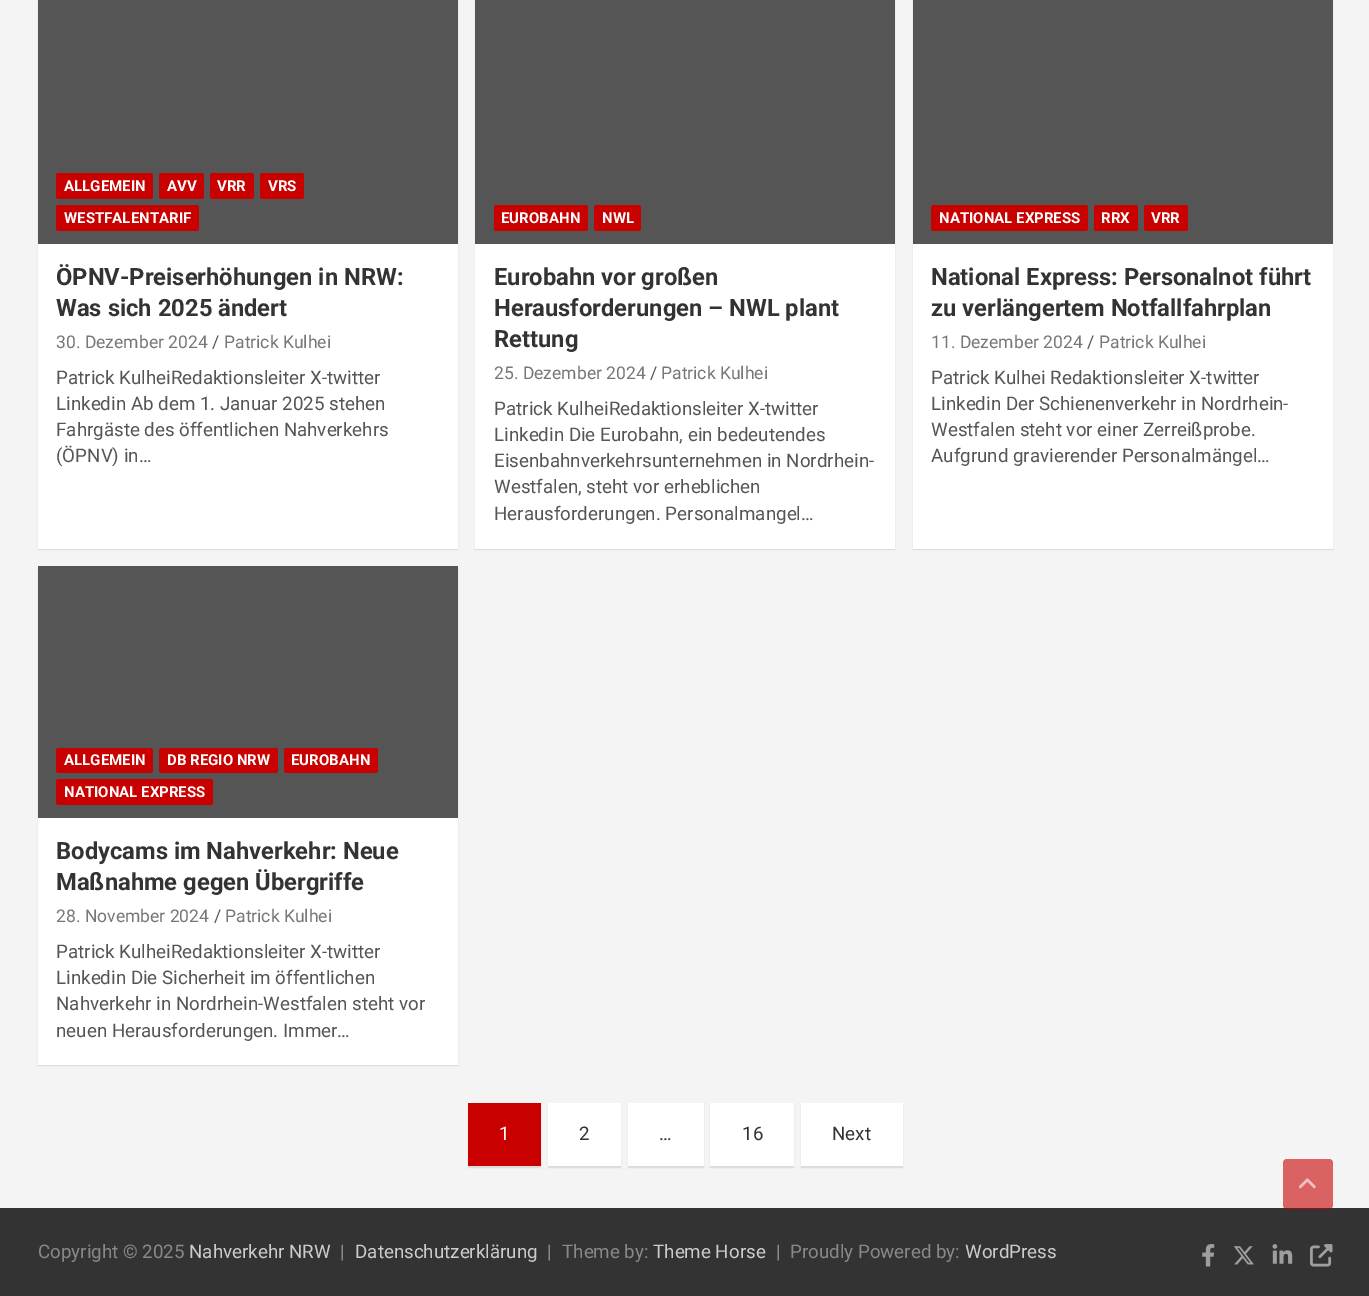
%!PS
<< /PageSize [1369 1296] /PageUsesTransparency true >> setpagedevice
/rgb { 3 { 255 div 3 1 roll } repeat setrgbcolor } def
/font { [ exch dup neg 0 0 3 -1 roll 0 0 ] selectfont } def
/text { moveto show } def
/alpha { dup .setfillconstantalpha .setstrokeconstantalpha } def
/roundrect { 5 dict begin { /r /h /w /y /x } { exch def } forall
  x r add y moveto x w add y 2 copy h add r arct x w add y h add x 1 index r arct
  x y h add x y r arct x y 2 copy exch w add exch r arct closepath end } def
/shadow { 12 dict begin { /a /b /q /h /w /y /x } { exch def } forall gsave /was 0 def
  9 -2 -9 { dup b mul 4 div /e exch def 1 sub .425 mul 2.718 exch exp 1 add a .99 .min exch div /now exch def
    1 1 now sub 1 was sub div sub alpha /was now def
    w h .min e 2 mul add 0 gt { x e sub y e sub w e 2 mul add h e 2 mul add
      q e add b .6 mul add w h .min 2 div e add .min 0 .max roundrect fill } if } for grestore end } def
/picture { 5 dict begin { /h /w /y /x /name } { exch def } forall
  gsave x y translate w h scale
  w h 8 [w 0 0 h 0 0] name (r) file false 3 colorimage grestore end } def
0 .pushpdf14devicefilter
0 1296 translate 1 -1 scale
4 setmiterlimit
244 244 244 rgb
0 0 1369 1296 rectfill
0 0 0 rgb
38 -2 420 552 0 0.5 0.1 shadow
255 255 255 rgb
38 244 420 305 rectfill
85 85 85 rgb
38 0 420 244 rectfill
200 0 0 rgb
56 173 97 26 2.5 roundrect fill
159 173 45 26 2.5 roundrect fill
210 173 44 26 2.5 roundrect fill
260 173 44 26 2.5 roundrect fill
56 205 143 26 2.5 roundrect fill
0 0 0 rgb
475 -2 420 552 0 0.5 0.1 shadow
255 255 255 rgb
475 244 420 305 rectfill
85 85 85 rgb
475 0 420 244 rectfill
200 0 0 rgb
494 205 94 26 2.5 roundrect fill
594 205 47 26 2.5 roundrect fill
0 0 0 rgb
913 -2 420 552 0 0.5 0.1 shadow
255 255 255 rgb
913 244 420 305 rectfill
85 85 85 rgb
913 0 420 244 rectfill
200 0 0 rgb
931 205 157 26 2.5 roundrect fill
1094 205 44 26 2.5 roundrect fill
1144 205 44 26 2.5 roundrect fill
0 0 0 rgb
38 568 420 498 0 0.5 0.1 shadow
255 255 255 rgb
38 818 420 247 rectfill
85 85 85 rgb
38 566 420 252 rectfill
200 0 0 rgb
56 748 97 25 2.5 roundrect fill
159 748 119 25 2.5 roundrect fill
284 748 94 25 2.5 roundrect fill
56 779 157 26 2.5 roundrect fill
0 0 0 rgb
468 1104 73 64 0 0.5 0.1 shadow
200 0 0 rgb
468 1103 73 63 rectfill
0 0 0 rgb
548 1104 73 64 0 0.5 0.1 shadow
255 255 255 rgb
548 1103 73 63 rectfill
0 0 0 rgb
628 1104 76 64 0 0.5 0.1 shadow
255 255 255 rgb
628 1103 76 63 rectfill
0 0 0 rgb
710 1104 84 64 0 0.5 0.1 shadow
255 255 255 rgb
710 1103 84 63 rectfill
0 0 0 rgb
801 1104 102 64 0 0.5 0.1 shadow
255 255 255 rgb
801 1103 102 63 rectfill
51 51 51 rgb
0 1208 1369 88 rectfill
0.6 alpha
200 0 0 rgb
1283 1159 50 50 4 roundrect fill
1 alpha
(img_01.rgb) 1299 1178 17 11 picture
(img_02.rgb) 1202 1244 13 23 picture
(img_03.rgb) 1233 1246 21 19 picture
(img_04.rgb) 1272 1244 21 20 picture
(img_05.rgb) 1310 1244 23 23 picture
/Roboto-Bold 15 font
255 255 255 rgb
(ALLGEMEIN) 64 191 text
(AVV) 167 191 text
(VRR) 217 191 text
(VRS) 268 191 text
(WESTFALENTARIF) 64 223 text
/Roboto-Bold 23.75 font
51 51 51 rgb
(ÖPNV-Preiserhöhungen in NRW:) 56 285 text
(Was sich 2025 ändert) 56 316 text
/Roboto-Regular 17.5 font
119 119 119 rgb
(30. Dezember 2024) 56 348 text
85 85 85 rgb
(/) 212 348 text
119 119 119 rgb
(Patrick Kulhei) 224 348 text
/Roboto-Regular 18.75 font
85 85 85 rgb
(Patrick KulheiRedaktionsleiter X-twitter) 56 384 text
(Linkedin Ab dem 1. Januar 2025 stehen) 56 410 text
(Fahrgäste des öffentlichen Nahverkehrs) 56 436 text
(\(ÖPNV\) in…) 56 462 text
/Roboto-Bold 15 font
255 255 255 rgb
(EUROBAHN) 501 223 text
(NWL) 602 223 text
/Roboto-Bold 23.75 font
51 51 51 rgb
(Eurobahn vor großen) 494 285 text
(Herausforderungen – NWL plant) 494 316 text
(Rettung) 494 347 text
/Roboto-Regular 17.5 font
119 119 119 rgb
(25. Dezember 2024) 494 379 text
85 85 85 rgb
(/) 650 379 text
119 119 119 rgb
(Patrick Kulhei) 661 379 text
/Roboto-Regular 18.75 font
85 85 85 rgb
(Patrick KulheiRedaktionsleiter X-twitter) 494 415 text
(Linkedin Die Eurobahn, ein bedeutendes) 494 441 text
(Eisenbahnverkehrsunternehmen in Nordrhein-) 494 467 text
(Westfalen, steht vor erheblichen) 494 493 text
(Herausforderungen. Personalmangel…) 494 520 text
/Roboto-Bold 15 font
255 255 255 rgb
(NATIONAL EXPRESS) 939 223 text
(RRX) 1101 223 text
(VRR) 1151 223 text
/Roboto-Bold 23.75 font
51 51 51 rgb
(National Express: Personalnot führt) 931 285 text
(zu verlängertem Notfallfahrplan) 931 316 text
/Roboto-Regular 17.5 font
119 119 119 rgb
(11. Dezember 2024) 931 348 text
85 85 85 rgb
(/) 1087 348 text
119 119 119 rgb
(Patrick Kulhei) 1099 348 text
/Roboto-Regular 18.75 font
85 85 85 rgb
(Patrick Kulhei Redaktionsleiter X-twitter) 931 384 text
(Linkedin Der Schienenverkehr in Nordrhein-) 931 410 text
(Westfalen steht vor einer Zerreißprobe.) 931 436 text
(Aufgrund gravierender Personalmängel…) 931 462 text
/Roboto-Bold 15 font
255 255 255 rgb
(ALLGEMEIN) 64 765 text
(DB REGIO NRW) 167 765 text
(EUROBAHN) 291 765 text
(NATIONAL EXPRESS) 64 797 text
/Roboto-Bold 23.75 font
51 51 51 rgb
(Bodycams im Nahverkehr: Neue) 56 859 text
(Maßnahme gegen Übergriffe) 56 890 text
/Roboto-Regular 17.5 font
119 119 119 rgb
(28. November 2024) 56 922 text
85 85 85 rgb
(/) 214 922 text
119 119 119 rgb
(Patrick Kulhei) 225 922 text
/Roboto-Regular 18.75 font
85 85 85 rgb
(Patrick KulheiRedaktionsleiter X-twitter) 56 958 text
(Linkedin Die Sicherheit im öffentlichen) 56 984 text
(Nahverkehr in Nordrhein-Westfalen steht vor) 56 1010 text
(neuen Herausforderungen. Immer…) 56 1037 text
255 255 255 rgb
(1) 499 1140 text
51 51 51 rgb
(2) 579 1140 text
(…) 659 1140 text
(16) 742 1140 text
(Next) 832 1140 text
136 136 136 rgb
(Copyright © 2025) 38 1258 text
204 204 204 rgb
(Nahverkehr NRW) 189 1258 text
136 136 136 rgb
(|) 340 1258 text
204 204 204 rgb
(Datenschutzerklärung) 355 1258 text
136 136 136 rgb
(|) 547 1258 text
(Theme by:) 562 1258 text
204 204 204 rgb
(Theme Horse) 653 1258 text
136 136 136 rgb
(|) 776 1258 text
(Proudly Powered by:) 790 1258 text
204 204 204 rgb
(WordPress) 965 1258 text
.poppdf14devicefilter showpage
